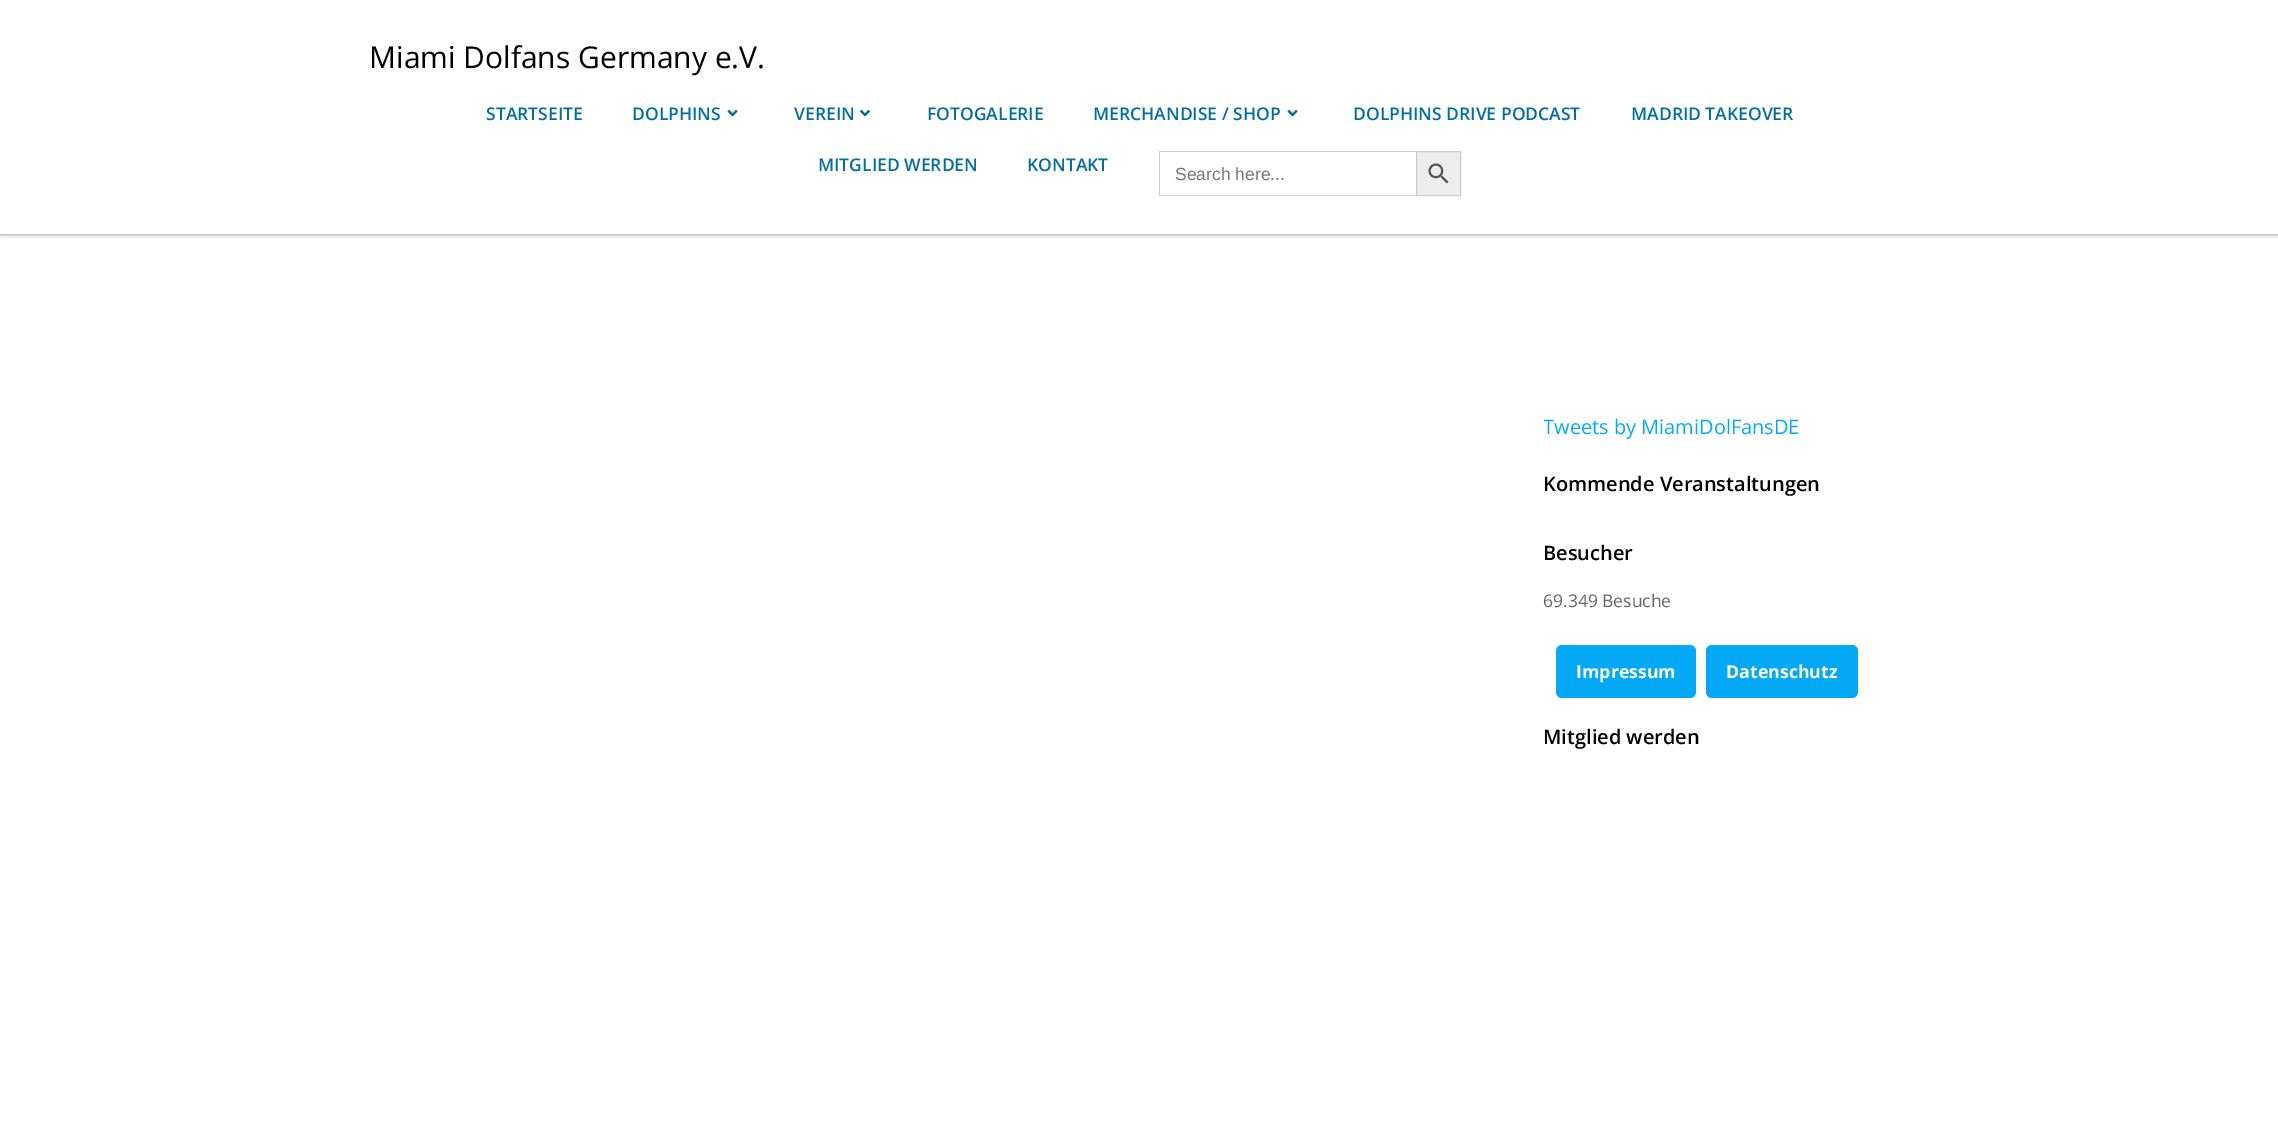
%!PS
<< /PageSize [2278 1134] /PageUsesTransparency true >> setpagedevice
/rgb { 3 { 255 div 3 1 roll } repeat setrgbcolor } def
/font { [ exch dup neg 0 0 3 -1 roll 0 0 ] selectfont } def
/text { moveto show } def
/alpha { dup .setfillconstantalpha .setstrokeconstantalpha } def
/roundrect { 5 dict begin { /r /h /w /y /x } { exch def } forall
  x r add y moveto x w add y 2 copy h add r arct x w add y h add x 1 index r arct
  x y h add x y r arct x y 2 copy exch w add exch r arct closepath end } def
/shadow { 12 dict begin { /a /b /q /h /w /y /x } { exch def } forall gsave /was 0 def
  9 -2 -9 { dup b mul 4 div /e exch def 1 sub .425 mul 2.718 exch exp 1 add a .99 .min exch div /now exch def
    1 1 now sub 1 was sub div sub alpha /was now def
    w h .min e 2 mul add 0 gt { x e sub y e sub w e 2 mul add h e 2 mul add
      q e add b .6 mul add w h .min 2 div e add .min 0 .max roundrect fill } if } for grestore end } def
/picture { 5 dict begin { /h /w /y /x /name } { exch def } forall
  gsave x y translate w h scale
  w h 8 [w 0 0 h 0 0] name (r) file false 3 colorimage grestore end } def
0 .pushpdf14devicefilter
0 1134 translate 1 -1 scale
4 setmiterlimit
255 255 255 rgb
0 0 2278 1134 rectfill
0 0 0 rgb
0 0 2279 234 0 2.5 0.5 shadow
255 255 255 rgb
0 0 2278 234 rectfill
(img_01.rgb) 727 110 11 7 picture
(img_02.rgb) 860 109 10 8 picture
(img_01.rgb) 1287 110 11 7 picture
204 204 204 rgb
1159 151 257 1 rectfill
1159 195 257 1 rectfill
1159 151 1 45 rectfill
237 237 237 rgb
1416.5 151.5 moveto 44 0 rlineto 0 44 rlineto -44 0 rlineto closepath gsave fill grestore
204 204 204 rgb
stroke
(img_03.rgb) 1428 163 21 21 picture
3 169 244 rgb
1556 645 140 53 6 roundrect fill
1706 645 152 53 6 roundrect fill
/OpenSans-Regular 30 font
0 0 0 rgb
(Miami Dolfans Germany e.V.) 369 68 text
/OpenSans-SemiBold 17.5 font
2 110 159 rgb
(STARTSEITE) 486 120 text
(DOLPHINS) 632 120 text
(VEREIN) 794 120 text
(FOTOGALERIE) 927 120 text
(MERCHANDISE / SHOP) 1093 120 text
(DOLPHINS DRIVE PODCAST) 1353 120 text
(MADRID TAKEOVER) 1631 120 text
(MITGLIED WERDEN) 818 171 text
(KONTAKT) 1027 171 text
/LiberationSans-Regular 17.5 font
117 117 117 rgb
(Search here...) 1175 180 text
gsave
1544 411 347 33 rectclip
/OpenSans-Regular 20 font
3 169 244 rgb
(Tweets by MiamiDolFansDE) 1543 434 text
grestore
/OpenSans-SemiBold 20 font
0 0 0 rgb
(Kommende Veranstaltungen) 1543 491 text
(Besucher) 1543 560 text
/OpenSans-Regular 17.5 font
102 102 102 rgb
(69.349 Besuche) 1543 607 text
/OpenSans-Bold 17.75 font
255 255 255 rgb
(Impressum) 1576 678 text
(Datenschutz) 1726 678 text
/OpenSans-SemiBold 20 font
0 0 0 rgb
(Mitglied werden) 1543 744 text
.poppdf14devicefilter showpage
